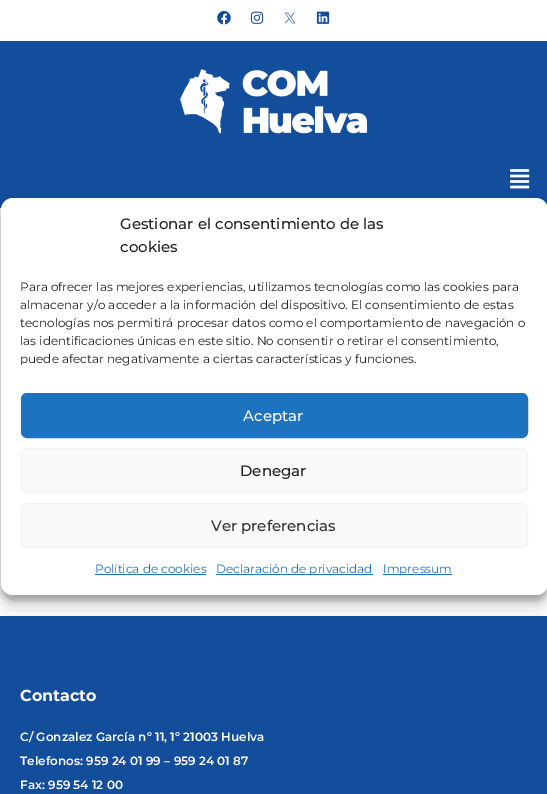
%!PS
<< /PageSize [547 794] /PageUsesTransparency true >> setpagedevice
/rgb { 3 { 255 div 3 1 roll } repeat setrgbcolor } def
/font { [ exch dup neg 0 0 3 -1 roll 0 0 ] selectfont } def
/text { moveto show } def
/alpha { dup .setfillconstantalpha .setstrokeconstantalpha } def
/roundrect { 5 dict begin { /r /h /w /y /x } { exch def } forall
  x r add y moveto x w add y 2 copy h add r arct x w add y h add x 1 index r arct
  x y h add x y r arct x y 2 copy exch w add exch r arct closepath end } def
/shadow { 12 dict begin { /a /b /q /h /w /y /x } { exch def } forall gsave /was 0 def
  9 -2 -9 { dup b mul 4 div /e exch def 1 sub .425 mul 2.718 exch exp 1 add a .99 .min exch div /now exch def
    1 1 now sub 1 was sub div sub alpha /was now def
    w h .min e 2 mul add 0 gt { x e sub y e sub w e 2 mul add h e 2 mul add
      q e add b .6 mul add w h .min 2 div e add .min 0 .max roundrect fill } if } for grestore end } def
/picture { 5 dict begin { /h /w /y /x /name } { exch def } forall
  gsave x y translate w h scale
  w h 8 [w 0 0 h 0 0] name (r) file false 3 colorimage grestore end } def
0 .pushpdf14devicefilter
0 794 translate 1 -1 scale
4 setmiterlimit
255 255 255 rgb
0 0 547 794 rectfill
gsave
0 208 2 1 rectclip
19 78 157 rgb
0 0 547 208 1 0.5 1 shadow
grestore
19 78 157 rgb
0 41 547 167 rectfill
gsave
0 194 moveto 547 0 rlineto 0 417 rlineto -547 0 rlineto closepath 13 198 moveto 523 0 rlineto 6.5 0 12 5.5 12 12 rcurveto 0 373 rlineto 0 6.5 -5.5 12 -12 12 rcurveto -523 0 rlineto -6.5 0 -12 -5.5 -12 -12 rcurveto 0 -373 rlineto 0 -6.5 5.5 -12 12 -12 rcurveto closepath eoclip newpath
0 0 0 rgb
1 204 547 397 12 3 0.23 shadow
grestore
(img_06.rgb) 510 169 20 20 picture
0 616 547 178 rectfill
gsave
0 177 moveto 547 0 rlineto 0 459 rlineto -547 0 rlineto closepath 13 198 moveto 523 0 rlineto 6.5 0 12 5.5 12 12 rcurveto 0 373 rlineto 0 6.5 -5.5 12 -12 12 rcurveto -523 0 rlineto -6.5 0 -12 -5.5 -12 -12 rcurveto 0 -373 rlineto 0 -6.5 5.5 -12 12 -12 rcurveto closepath eoclip newpath
0 0 0 rgb
1 208 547 397 12 10 0.19 shadow
grestore
255 255 255 rgb
1 198 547 397 12 roundrect fill
30 115 190 rgb
21.5 393.5 506 44 5.5 roundrect gsave fill grestore
stroke
249 249 249 rgb
21.5 448.5 506 44 5.5 roundrect gsave fill grestore
242 242 242 rgb
stroke
249 249 249 rgb
21.5 503.5 506 44 5.5 roundrect gsave fill grestore
242 242 242 rgb
stroke
30 115 190 rgb
95 574 111 1 rectfill
216 574 157 1 rectfill
383 574 69 1 rectfill
(img_01.rgb) 217 11 14 14 picture
(img_02.rgb) 250 11 14 13 picture
(img_03.rgb) 284 12 12 12 picture
(img_04.rgb) 316 11 14 13 picture
(img_05.rgb) 180 69 188 65 picture
/Montserrat-Medium 15 font
34 34 34 rgb
(Gestionar el consentimiento de las) 120 229 text
(cookies) 120 252 text
/Montserrat-Regular 12 font
(Para ofrecer las mejores experiencias, utilizamos tecnologías como las cookies para) 20 291 text
(almacenar y/o acceder a la información del dispositivo. El consentimiento de estas) 20 309 text
(tecnologías nos permitirá procesar datos como el comportamiento de navegación o) 20 327 text
(las identificaciones únicas en este sitio. No consentir o retirar el consentimiento,) 20 345 text
(puede afectar negativamente a ciertas características y funciones.) 20 363 text
/Montserrat-Medium 15 font
255 255 255 rgb
(Aceptar) 243 421 text
34 34 34 rgb
(Denegar) 240 476 text
51 51 51 rgb
(Ver preferencias) 211 531 text
/Montserrat-Regular 12 font
30 115 190 rgb
(Política de cookies) 95 573 text
(Declaración de privacidad) 216 573 text
(Impressum) 383 573 text
/Montserrat-Bold 16 font
255 255 255 rgb
(Contacto) 20 701 text
/Montserrat-SemiBold 12 font
(C/ Gonzalez García nº 11, 1º 21003 Huelva) 20 741 text
(Telefonos: 959 24 01 99 – 959 24 01 87) 20 765 text
(Fax: 959 54 12 00) 20 789 text
.poppdf14devicefilter showpage
